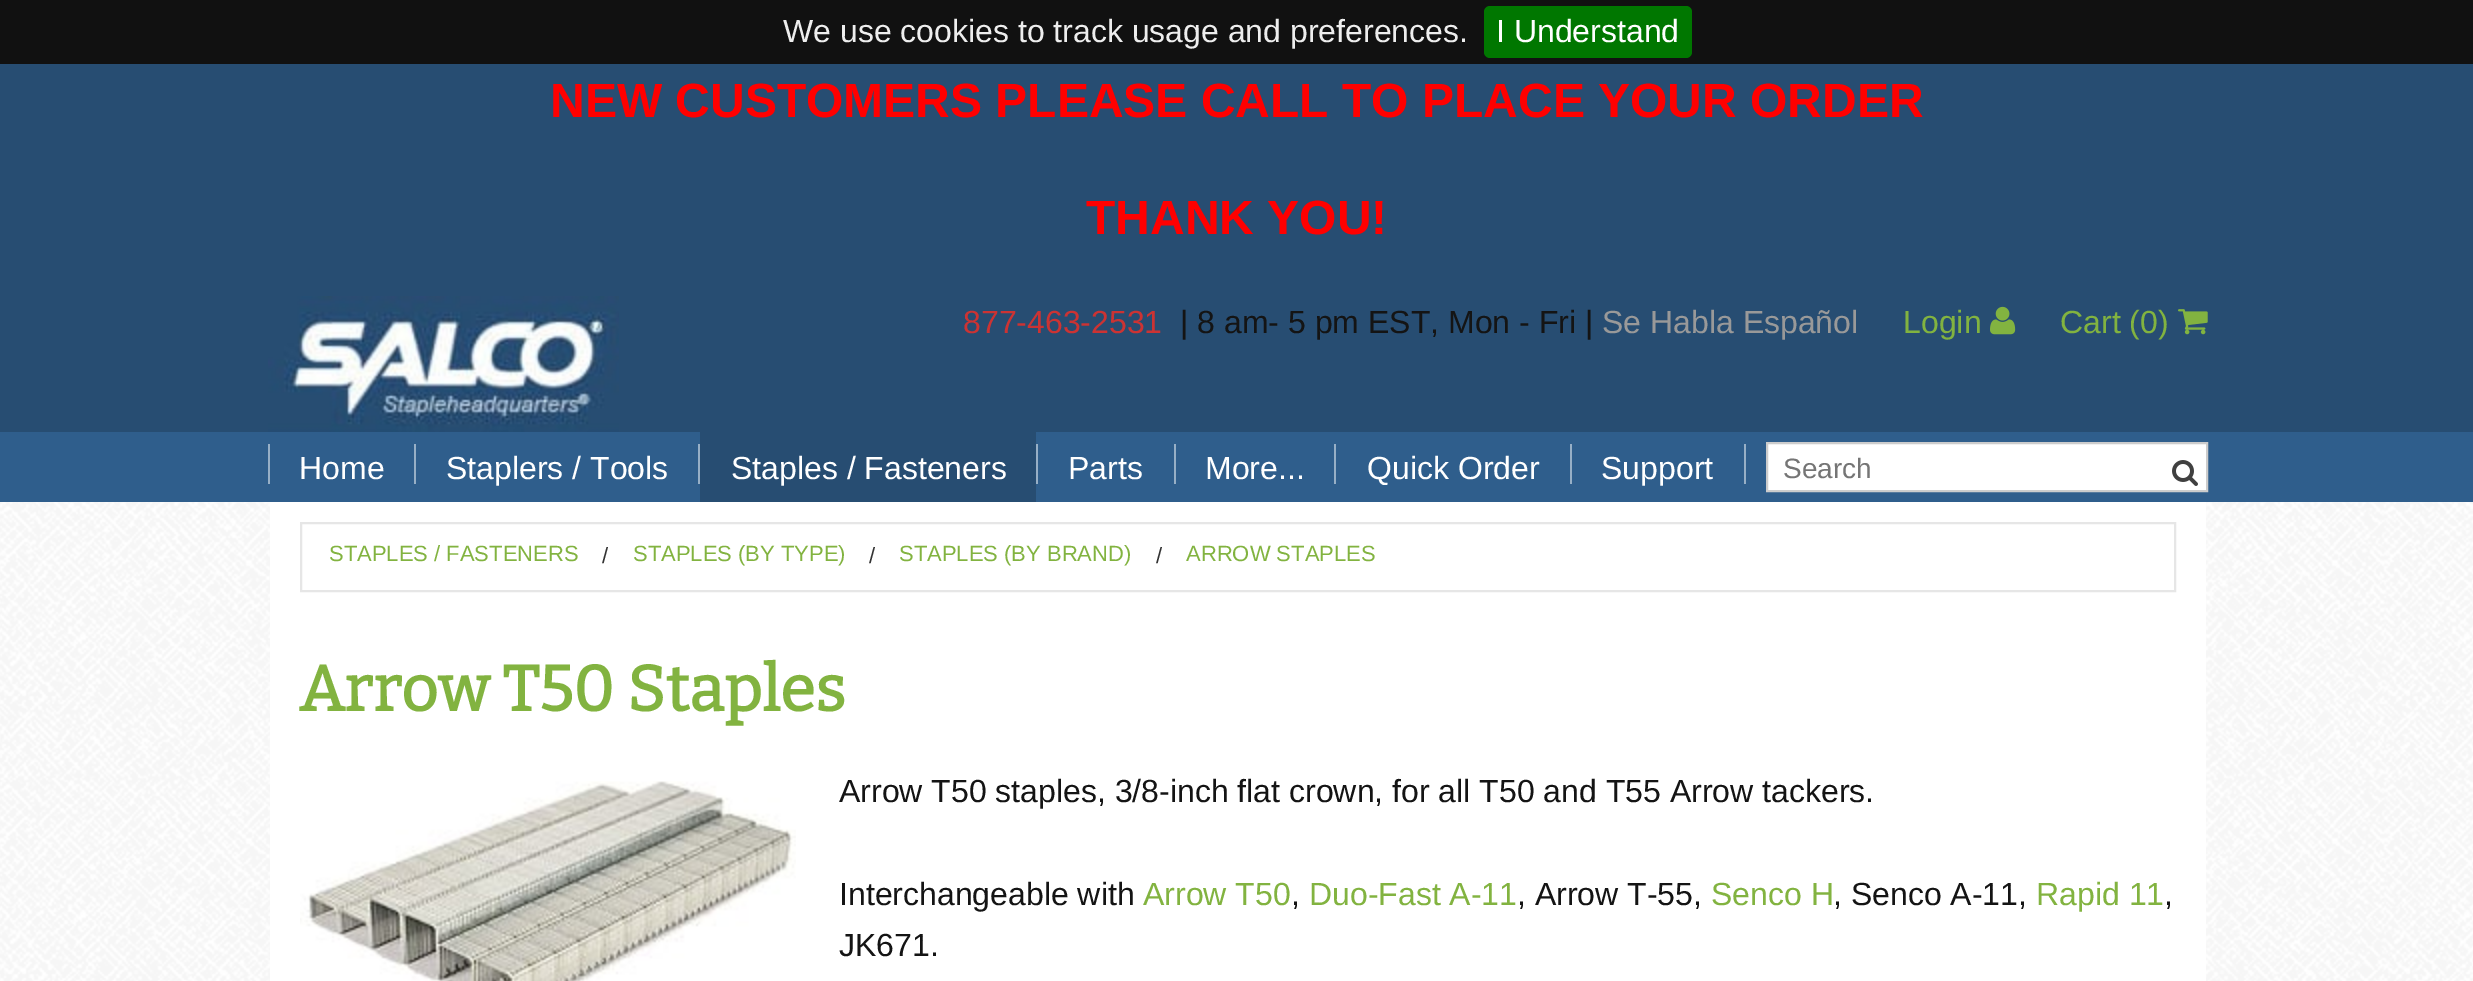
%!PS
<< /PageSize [2473 981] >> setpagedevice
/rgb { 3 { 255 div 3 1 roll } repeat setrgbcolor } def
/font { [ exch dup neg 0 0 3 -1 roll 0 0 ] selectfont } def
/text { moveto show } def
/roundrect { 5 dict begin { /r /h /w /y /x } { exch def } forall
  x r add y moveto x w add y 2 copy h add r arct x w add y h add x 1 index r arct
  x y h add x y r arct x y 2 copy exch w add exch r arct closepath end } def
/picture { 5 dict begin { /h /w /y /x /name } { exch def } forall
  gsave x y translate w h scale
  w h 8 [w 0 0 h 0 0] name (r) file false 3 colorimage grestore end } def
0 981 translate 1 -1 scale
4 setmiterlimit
39 77 114 rgb
0 0 2473 981 rectfill
17 17 17 rgb
0 0 2473 64 rectfill
0 119 0 rgb
1484 6 208 52 6 roundrect fill
(img_01.rgb) 268 296 351 136 picture
(img_02.rgb) 1990 306 26 29 picture
(img_03.rgb) 2178 309 30 26 picture
47 94 140 rgb
0 432 2473 70 rectfill
151 175 198 rgb
268 444 2 40 rectfill
414 444 2 40 rectfill
698 444 2 40 rectfill
39 77 114 rgb
700 432 336 70 rectfill
151 175 198 rgb
1036 444 2 40 rectfill
1174 444 2 40 rectfill
1334 444 2 40 rectfill
1570 444 2 40 rectfill
1744 444 2 40 rectfill
255 255 255 rgb
1767 443 moveto 440 0 rlineto 0 48 rlineto -440 0 rlineto closepath gsave fill grestore
204 204 204 rgb
2 setlinewidth
stroke
(img_04.rgb) 2172 460 26 26 picture
(img_05.rgb) 0 502 2473 479 picture
255 255 255 rgb
270 502 1936 479 rectfill
230 230 230 rgb
301 523 1874 68 rectstroke
(img_06.rgb) 300 781 496 200 picture
/LiberationSans-Regular 32 font
238 238 238 rgb
(We use cookies to track usage and preferences.) 783 42 text
255 255 255 rgb
(I Understand) 1496 42 text
/LiberationSans-Bold 48 font
255 0 0 rgb
(NEW CUSTOMERS PLEASE CALL TO PLACE YOUR ORDER) 550 117 text
(THANK YOU!) 1086 234 text
/LiberationSans-Regular 32 font
204 51 51 rgb
(877-463-2531) 963 333 text
20 20 20 rgb
(| 8 am- 5 pm EST, Mon - Fri |) 1180 333 text
153 153 153 rgb
(Se Habla Español) 1602 333 text
130 179 64 rgb
(Login) 1903 333 text
(Cart \(0\)) 2060 333 text
255 255 255 rgb
(Home) 299 479 text
(Staplers / Tools) 446 479 text
(Staples / Fasteners) 731 479 text
(Parts) 1068 479 text
(More...) 1205 479 text
(Quick Order) 1367 479 text
(Support) 1601 479 text
/LiberationSans-Regular 28 font
117 117 117 rgb
(Search) 1783 478 text
/LiberationSans-Regular 22 font
130 179 64 rgb
(STAPLES / FASTENERS) 329 561 text
51 51 51 rgb
(/) 602 563 text
130 179 64 rgb
(STAPLES \(BY TYPE\)) 633 561 text
51 51 51 rgb
(/) 869 563 text
130 179 64 rgb
(STAPLES \(BY BRAND\)) 899 561 text
51 51 51 rgb
(/) 1156 563 text
130 179 64 rgb
(ARROW STAPLES) 1186 561 text
/Bitter-Bold 64 font
(Arrow T50 Staples) 299 711 text
/LiberationSans-Regular 32 font
20 20 20 rgb
(Arrow T50 staples, 3/8-inch flat crown, for all T50 and T55 Arrow tackers.) 839 802 text
(Interchangeable with) 839 905 text
130 179 64 rgb
(Arrow T50) 1143 905 text
20 20 20 rgb
(,) 1291 905 text
130 179 64 rgb
(Duo-Fast A-11) 1309 905 text
20 20 20 rgb
(, Arrow T-55,) 1517 905 text
130 179 64 rgb
(Senco H) 1711 905 text
20 20 20 rgb
(, Senco A-11,) 1833 905 text
130 179 64 rgb
(Rapid 11) 2036 905 text
20 20 20 rgb
(,) 2164 905 text
(JK671.) 839 956 text
showpage
